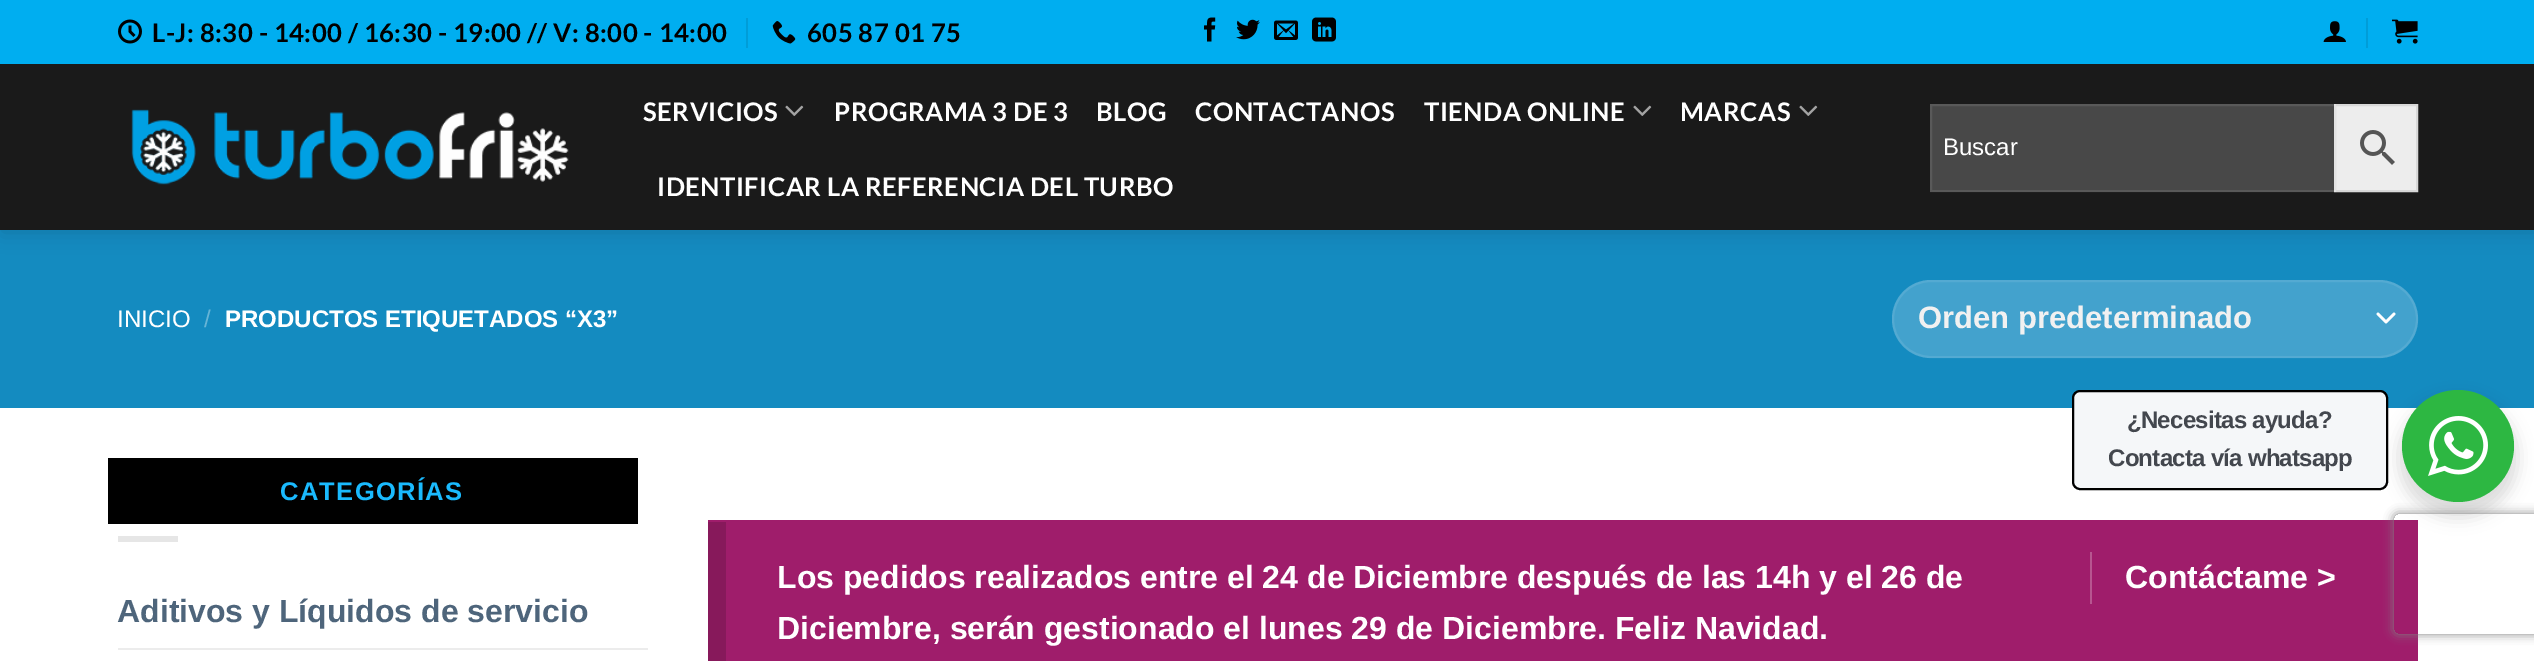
%!PS
<< /PageSize [2534 661] /PageUsesTransparency true >> setpagedevice
/rgb { 3 { 255 div 3 1 roll } repeat setrgbcolor } def
/font { [ exch dup neg 0 0 3 -1 roll 0 0 ] selectfont } def
/text { moveto show } def
/alpha { dup .setfillconstantalpha .setstrokeconstantalpha } def
/circle { newpath 0 360 arc closepath } def
/roundrect { 5 dict begin { /r /h /w /y /x } { exch def } forall
  x r add y moveto x w add y 2 copy h add r arct x w add y h add x 1 index r arct
  x y h add x y r arct x y 2 copy exch w add exch r arct closepath end } def
/shadow { 12 dict begin { /a /b /q /h /w /y /x } { exch def } forall gsave /was 0 def
  9 -2 -9 { dup b mul 4 div /e exch def 1 sub .425 mul 2.718 exch exp 1 add a .99 .min exch div /now exch def
    1 1 now sub 1 was sub div sub alpha /was now def
    w h .min e 2 mul add 0 gt { x e sub y e sub w e 2 mul add h e 2 mul add
      q e add b .6 mul add w h .min 2 div e add .min 0 .max roundrect fill } if } for grestore end } def
/picture { 5 dict begin { /h /w /y /x /name } { exch def } forall
  gsave x y translate w h scale
  w h 8 [w 0 0 h 0 0] name (r) file false 3 colorimage grestore end } def
0 .pushpdf14devicefilter
0 661 translate 1 -1 scale
4 setmiterlimit
255 255 255 rgb
0 0 2534 661 rectfill
20 139 192 rgb
0 230 2534 178 rectfill
0 0 0 rgb
2 2 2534 230 0 10 0.15 shadow
0 174 240 rgb
0 0 2534 64 rectfill
(img_01.rgb) 118 19 24 25 picture
0 157 216 rgb
746 18 2 30 rectfill
(img_02.rgb) 772 21 24 23 picture
(img_03.rgb) 1204 17 12 25 picture
(img_04.rgb) 1236 19 24 21 picture
(img_05.rgb) 1274 20 24 20 picture
(img_06.rgb) 1312 17 24 25 picture
(img_07.rgb) 2323 21 23 21 picture
2366 18 2 30 rectfill
(img_08.rgb) 2392 19 26 25 picture
26 26 26 rgb
0 64 2534 166 rectfill
(img_09.rgb) 131 109 438 76 picture
(img_10.rgb) 785 105 19 11 picture
(img_10.rgb) 1633 105 19 11 picture
(img_10.rgb) 1799 105 19 11 picture
237 237 237 rgb
2335 105 moveto 82 0 rlineto 0 86 rlineto -82 0 rlineto closepath gsave fill grestore
216 216 216 rgb
2 setlinewidth
stroke
0.2 alpha
255 255 255 rgb
1930 104 406 88 rectfill
0.09 alpha
1931 105 404 86 rectstroke
1 alpha
(img_11.rgb) 2360 130 35 35 picture
67 162 205 rgb
1892 280 526 78 39 roundrect fill
255 255 255 rgb
2.7 setlinewidth
1 setlinecap
1 setlinejoin
2378 314 moveto 8 8 rlineto 8 -8 rlineto stroke
0.09 alpha
2 setlinewidth
0 setlinecap
0 setlinejoin
1893 281 524 76 38 roundrect stroke
1 alpha
0 0 0 rgb
108 458 530 66 rectfill
230 230 230 rgb
118 536 60 6 rectfill
236 236 236 rgb
118 648 530 2 rectfill
159 29 107 rgb
708 520 1710 141 rectfill
135 25 91 rgb
708 522 18 139 rectfill
183 86 144 rgb
2090 552 2 52 rectfill
0 0 0 rgb
2398 398 120 120 60 8 0.14 shadow
245 247 249 rgb
2073 391 314 98 7 roundrect gsave fill grestore
0 0 0 rgb
stroke
gsave
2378 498 moveto 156 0 rlineto 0 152 rlineto -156 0 rlineto closepath 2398 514 moveto 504 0 rlineto 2 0 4 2 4 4 rcurveto 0 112 rlineto 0 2 -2 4 -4 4 rcurveto -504 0 rlineto -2 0 -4 -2 -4 -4 rcurveto 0 -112 rlineto 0 -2 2 -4 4 -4 rcurveto closepath eoclip newpath
128 128 128 rgb
2394 514 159 120 4 5 1 shadow
grestore
45 183 66 rgb
2458 446 56 circle fill
(img_12.rgb) 2428 416 60 60 picture
/Lato-Bold 25.6 font
0 0 0 rgb
152 42 moveto 0.5 0 (L-J: 8:30 - 14:00 / 16:30 - 19:00 // V: 8:00 - 14:00) ashow
807 42 moveto 0.5 0 (605 87 01 75) ashow
255 255 255 rgb
643 121 moveto 0.5 0 (SERVICIOS) ashow
834 121 moveto 0.5 0 (PROGRAMA 3 DE 3) ashow
1096 121 moveto 0.5 0 (BLOG) ashow
1195 121 moveto 0.5 0 (CONTACTANOS) ashow
1424 121 moveto 0.5 0 (TIENDA ONLINE) ashow
1680 121 moveto 0.5 0 (MARCAS) ashow
657 196 moveto 0.5 0 (IDENTIFICAR LA REFERENCIA DEL TURBO) ashow
/LiberationSans-Regular 24 font
(Buscar) 1943 155 text
(INICIO) 117 327 text
102 180 214 rgb
(/) 204 327 text
/LiberationSans-Bold 24 font
255 255 255 rgb
(PRODUCTOS ETIQUETADOS “X3”) 225 327 text
/LiberationSans-Bold 31 font
241 241 241 rgb
(Orden predeterminado) 1918 328 text
/LiberationSans-Bold 25.6 font
26 186 254 rgb
280 500 moveto 1.25 0 (CATEGORÍAS) ashow
/LiberationSans-Bold 32 font
78 101 123 rgb
(Aditivos y Líquidos de servicio) 117 622 text
255 255 255 rgb
(Los pedidos realizados entre el 24 de Diciembre después de las 14h y el 26 de) 777 588 text
(Contáctame >) 2125 588 text
(Diciembre, serán gestionado el lunes 29 de Diciembre. Feliz Navidad.) 777 639 text
/LiberationSans-Bold 24 font
67 71 78 rgb
2127 428 moveto -0.75 0 (¿Necesitas ayuda?) ashow
2108 466 moveto -0.75 0 (Contacta vía whatsapp) ashow
.poppdf14devicefilter showpage
